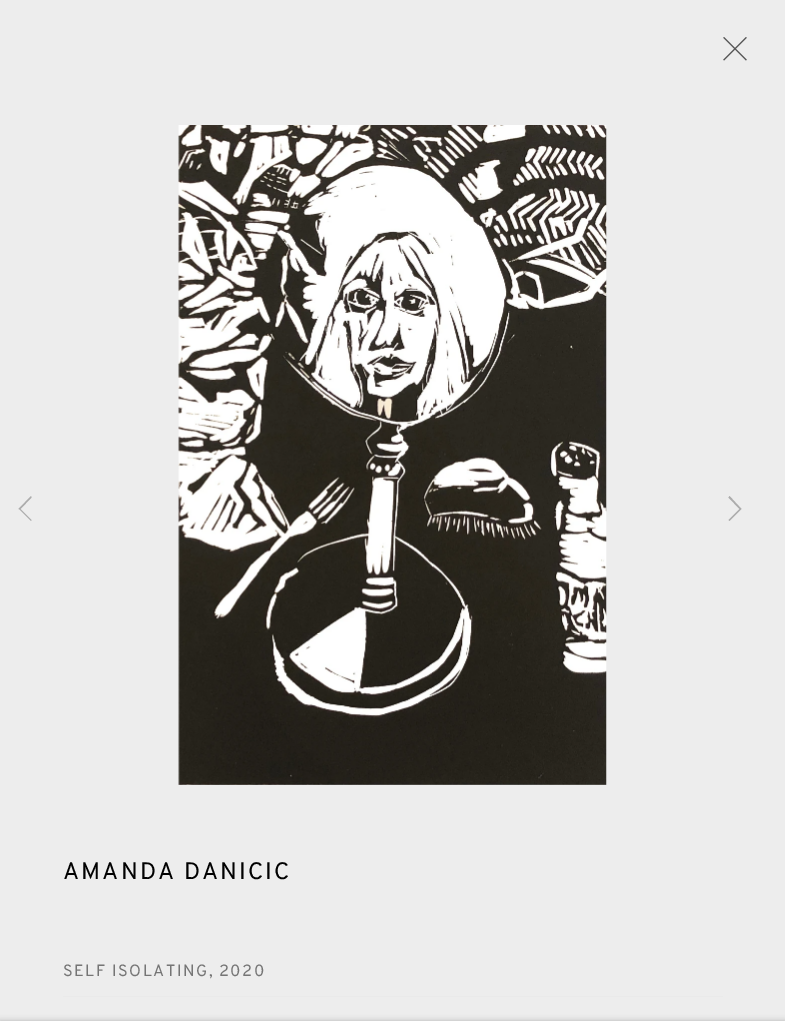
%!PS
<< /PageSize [785 1021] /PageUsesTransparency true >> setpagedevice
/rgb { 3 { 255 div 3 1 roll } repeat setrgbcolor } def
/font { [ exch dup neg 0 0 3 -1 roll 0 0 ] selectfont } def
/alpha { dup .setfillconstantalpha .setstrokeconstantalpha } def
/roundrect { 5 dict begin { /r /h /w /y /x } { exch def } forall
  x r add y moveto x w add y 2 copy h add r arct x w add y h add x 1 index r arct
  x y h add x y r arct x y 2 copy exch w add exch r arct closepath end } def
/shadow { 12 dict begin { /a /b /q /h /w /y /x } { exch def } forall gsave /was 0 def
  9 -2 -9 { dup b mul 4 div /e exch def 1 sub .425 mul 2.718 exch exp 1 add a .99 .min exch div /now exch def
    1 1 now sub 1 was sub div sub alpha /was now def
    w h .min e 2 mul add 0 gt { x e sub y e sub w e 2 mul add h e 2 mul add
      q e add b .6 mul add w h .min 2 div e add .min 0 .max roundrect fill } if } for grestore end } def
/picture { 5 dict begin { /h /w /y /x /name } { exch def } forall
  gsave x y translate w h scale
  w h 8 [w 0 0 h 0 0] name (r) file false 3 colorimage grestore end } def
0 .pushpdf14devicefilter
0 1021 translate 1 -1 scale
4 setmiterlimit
237 237 237 rgb
0 0 785 1021 rectfill
(img_01.rgb) 723 37 24 24 picture
172 172 172 rgb
19.5 509.5 moveto 11.5 11.5 rlineto 0.5 -1 rlineto -11 -11 rlineto 11 -11.5 rlineto -0.5 -1.5 rlineto -12.5 13 rlineto closepath fill
741.5 509 moveto -12 -13 rlineto -1 1.5 rlineto 11 11.5 rlineto -11 11 rlineto 1 1 rlineto closepath fill
(img_02.rgb) 178 125 429 660 picture
234 234 234 rgb
63 996 660 1 rectfill
0 0 0 rgb
0 1021 785 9 0 3 0.23 shadow
/Overpass-Regular 23.75 font
1 1 1 rgb
63 879 moveto 2.1 0 (AMANDA DANICIC) ashow
/Overpass-Regular 16.25 font
117 117 117 rgb
63 976 moveto 1.5 0 (SELF ISOLATING, 2020) ashow
.poppdf14devicefilter showpage
